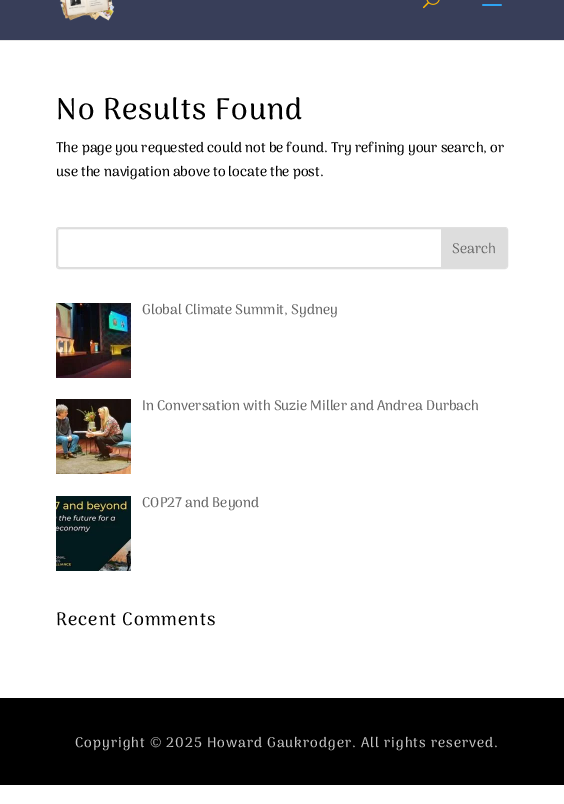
%!PS
<< /PageSize [564 804] >> setpagedevice
/rgb { 3 { 255 div 3 1 roll } repeat setrgbcolor } def
/font { [ exch dup neg 0 0 3 -1 roll 0 0 ] selectfont } def
/text { moveto show } def
/roundrect { 5 dict begin { /r /h /w /y /x } { exch def } forall
  x r add y moveto x w add y 2 copy h add r arct x w add y h add x 1 index r arct
  x y h add x y r arct x y 2 copy exch w add exch r arct closepath end } def
/picture { 5 dict begin { /h /w /y /x /name } { exch def } forall
  gsave x y translate w h scale
  w h 8 [w 0 0 h 0 0] name (r) file false 3 colorimage grestore end } def
0 804 translate 1 -1 scale
4 setmiterlimit
255 255 255 rgb
0 0 564 804 rectfill
230 230 230 rgb
0 40 564 1 rectfill
56 62 89 rgb
0 0 564 40 rectfill
(img_01.rgb) 59 0 56 21 picture
(img_02.rgb) 423 0 17 9 picture
(img_03.rgb) 482 4 20 2 picture
224 224 224 rgb
56.5 227.5 451 41 2.5 roundrect stroke
221 221 221 rgb
57.5 228.5 449 39 2.5 roundrect stroke
441.5 228.5 moveto 62.5 0 rlineto 1.5 0 2.5 1 2.5 2.5 rcurveto 0 34 rlineto 0 1.5 -1 2.5 -2.5 2.5 rcurveto -62.5 0 rlineto closepath gsave fill grestore
stroke
(img_04.rgb) 56 303 75 75 picture
(img_05.rgb) 56 399 75 75 picture
(img_06.rgb) 56 496 75 75 picture
0 0 0 rgb
0 698 564 87 rectfill
/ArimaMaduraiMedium-Medium 30 font
56 119 moveto 1 0 (No Results Found) ashow
/ArimaMaduraiMedium-Medium 14 font
(The page you requested could not be found. Try refining your search, or) 56 152 text
(use the navigation above to locate the post.) 56 176 text
/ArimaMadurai-Regular 14 font
102 102 102 rgb
(Search) 452 253 text
/ArimaMaduraiMedium-Medium 14 font
(Global Climate Summit, Sydney) 142 314 text
(In Conversation with Suzie Miller and Andrea Durbach) 142 410 text
(COP27 and Beyond) 142 507 text
/ArimaMaduraiMedium-Medium 18 font
0 0 0 rgb
56 625 moveto 1 0 (Recent Comments) ashow
/ArimaMaduraiMedium-Medium 14 font
198 198 198 rgb
75 747 moveto 1 0 (Copyright © 2025 Howard Gaukrodger. All rights reserved.) ashow
showpage
